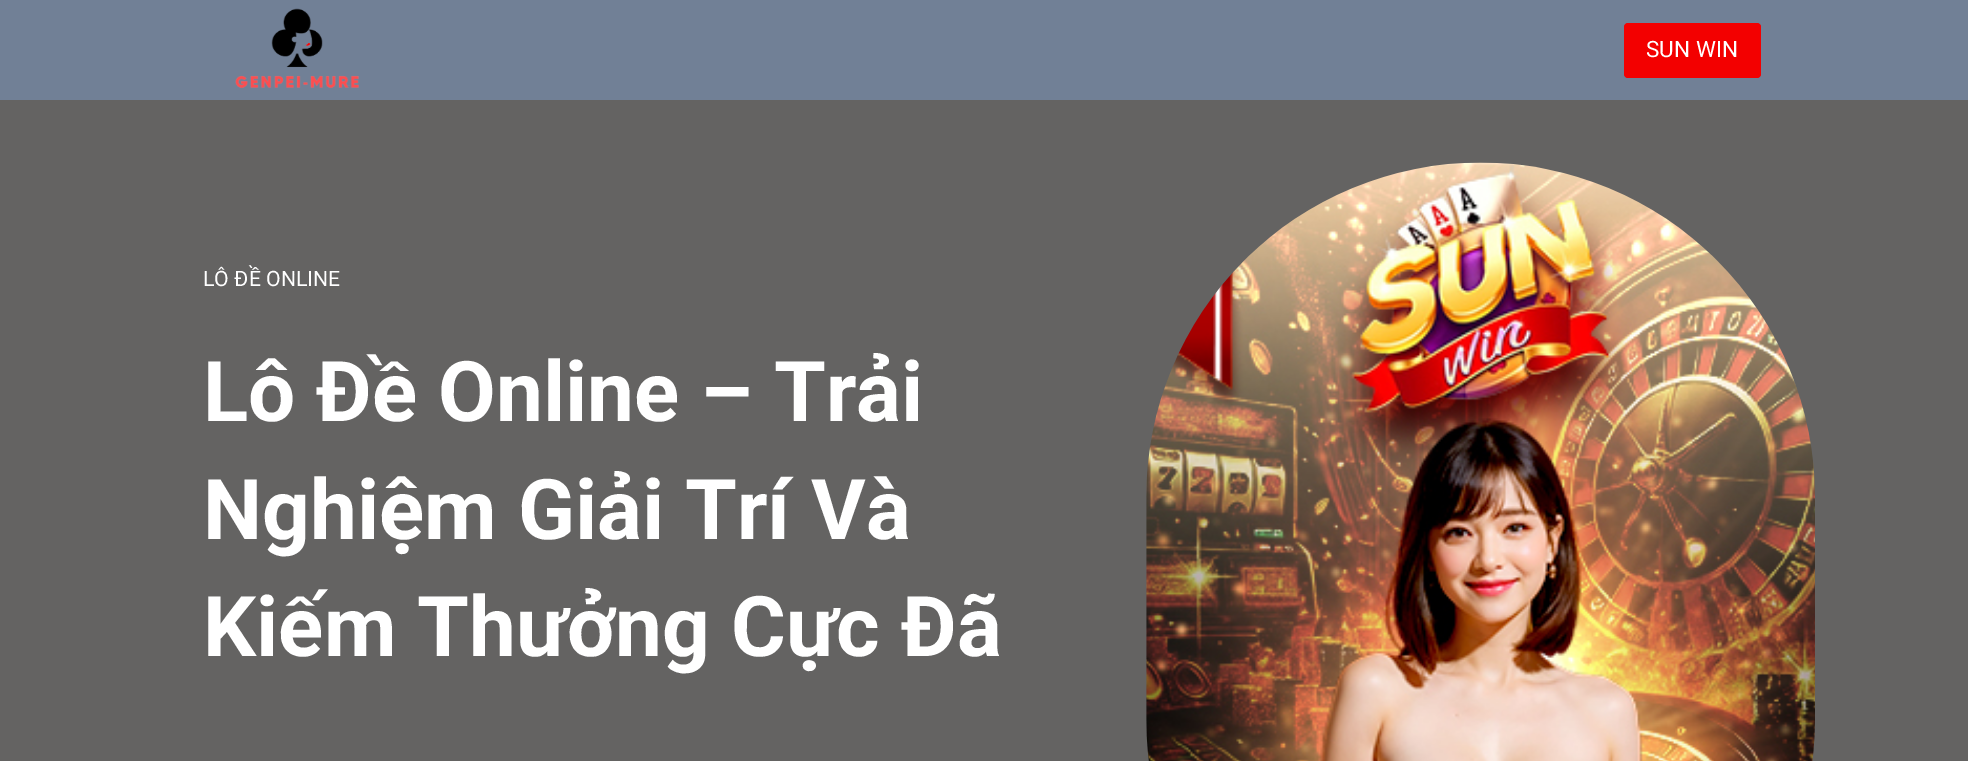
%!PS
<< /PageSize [1968 761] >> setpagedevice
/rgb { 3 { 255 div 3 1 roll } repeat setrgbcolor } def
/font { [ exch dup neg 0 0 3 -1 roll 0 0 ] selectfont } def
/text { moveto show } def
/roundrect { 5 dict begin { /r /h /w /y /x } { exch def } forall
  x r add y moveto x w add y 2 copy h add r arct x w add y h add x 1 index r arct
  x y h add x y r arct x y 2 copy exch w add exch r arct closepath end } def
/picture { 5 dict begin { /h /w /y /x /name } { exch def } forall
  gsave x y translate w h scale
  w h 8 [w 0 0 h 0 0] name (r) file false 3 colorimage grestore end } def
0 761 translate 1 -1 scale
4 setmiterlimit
100 99 98 rgb
0 0 1968 761 rectfill
113 128 150 rgb
0 0 1968 100 rectfill
(img_01.rgb) 235 8 124 80 picture
243 0 0 rgb
1624 23 137 55 4 roundrect fill
(img_02.rgb) 1146 162 669 599 picture
/Roboto-Regular 22.5 font
255 255 255 rgb
(SUN WIN) 1646 57 text
/Roboto-Regular 21.25 font
(LÔ ĐỀ ONLINE) 203 286 text
/Roboto-Bold 83.75 font
(Lô Đề Online – Trải) 203 421 text
(Nghiệm Giải Trí Và) 203 539 text
(Kiếm Thưởng Cực Đã) 203 656 text
showpage
